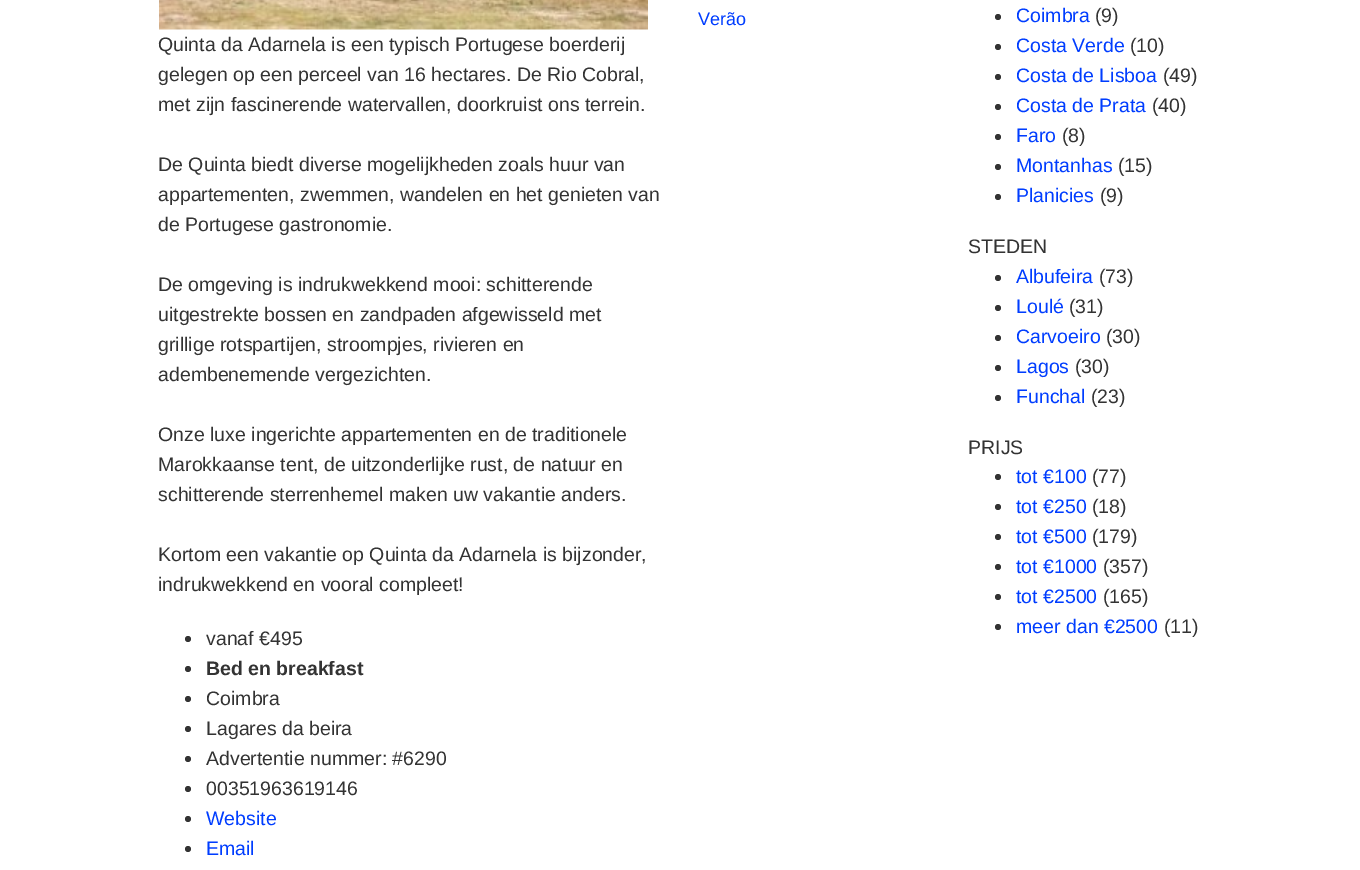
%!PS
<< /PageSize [1360 870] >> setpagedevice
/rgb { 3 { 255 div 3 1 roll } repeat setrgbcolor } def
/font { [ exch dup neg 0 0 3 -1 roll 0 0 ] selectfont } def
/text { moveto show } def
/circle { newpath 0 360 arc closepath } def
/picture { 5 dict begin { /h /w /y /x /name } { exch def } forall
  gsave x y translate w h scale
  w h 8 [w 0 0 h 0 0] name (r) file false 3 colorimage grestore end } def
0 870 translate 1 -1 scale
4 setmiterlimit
255 255 255 rgb
0 0 1360 870 rectfill
(img_01.rgb) 159 0 489 30 picture
51 51 51 rgb
188 639 3 circle fill
188 669 3 circle fill
188 699 3 circle fill
188 729 3 circle fill
188 759 3 circle fill
188 789 3 circle fill
188 819 3 circle fill
188 849 3 circle fill
998 17 3 circle fill
998 47 3 circle fill
998 77 3 circle fill
998 107 3 circle fill
998 137 3 circle fill
998 167 3 circle fill
998 197 3 circle fill
998 278 3 circle fill
998 308 3 circle fill
998 338 3 circle fill
998 368 3 circle fill
998 398 3 circle fill
998 477 3 circle fill
998 507 3 circle fill
998 537 3 circle fill
998 567 3 circle fill
998 597 3 circle fill
998 627 3 circle fill
/LiberationSans-Regular 18 font
0 61 255 rgb
(Verão) 698 25 text
/LiberationSans-Regular 19.5 font
51 51 51 rgb
(Quinta da Adarnela is een typisch Portugese boerderij) 158 51 text
(gelegen op een perceel van 16 hectares. De Rio Cobral,) 158 81 text
(met zijn fascinerende watervallen, doorkruist ons terrein.) 158 111 text
(De Quinta biedt diverse mogelijkheden zoals huur van) 158 171 text
(appartementen, zwemmen, wandelen en het genieten van) 158 201 text
(de Portugese gastronomie.) 158 231 text
(De omgeving is indrukwekkend mooi: schitterende) 158 291 text
(uitgestrekte bossen en zandpaden afgewisseld met) 158 321 text
(grillige rotspartijen, stroompjes, rivieren en) 158 351 text
(adembenemende vergezichten.) 158 381 text
(Onze luxe ingerichte appartementen en de traditionele) 158 441 text
(Marokkaanse tent, de uitzonderlijke rust, de natuur en) 158 471 text
(schitterende sterrenhemel maken uw vakantie anders.) 158 501 text
(Kortom een vakantie op Quinta da Adarnela is bijzonder,) 158 561 text
(indrukwekkend en vooral compleet!) 158 591 text
(vanaf €495) 206 645 text
/LiberationSans-Bold 19.5 font
(Bed en breakfast) 206 675 text
/LiberationSans-Regular 19.5 font
(Coimbra) 206 705 text
(Lagares da beira) 206 735 text
(Advertentie nummer: #6290) 206 765 text
(00351963619146) 206 795 text
0 61 255 rgb
(Website) 206 825 text
(Email) 206 855 text
(Coimbra) 1016 22 text
51 51 51 rgb
(\(9\)) 1095 22 text
0 61 255 rgb
(Costa Verde) 1016 52 text
51 51 51 rgb
(\(10\)) 1130 52 text
0 61 255 rgb
(Costa de Lisboa) 1016 82 text
51 51 51 rgb
(\(49\)) 1163 82 text
0 61 255 rgb
(Costa de Prata) 1016 112 text
51 51 51 rgb
(\(40\)) 1152 112 text
0 61 255 rgb
(Faro) 1016 142 text
51 51 51 rgb
(\(8\)) 1062 142 text
0 61 255 rgb
(Montanhas) 1016 172 text
51 51 51 rgb
(\(15\)) 1118 172 text
0 61 255 rgb
(Planicies) 1016 202 text
51 51 51 rgb
(\(9\)) 1100 202 text
(STEDEN) 968 253 text
0 61 255 rgb
(Albufeira) 1016 283 text
51 51 51 rgb
(\(73\)) 1099 283 text
0 61 255 rgb
(Loulé) 1016 313 text
51 51 51 rgb
(\(31\)) 1069 313 text
0 61 255 rgb
(Carvoeiro) 1016 343 text
51 51 51 rgb
(\(30\)) 1106 343 text
0 61 255 rgb
(Lagos) 1016 373 text
51 51 51 rgb
(\(30\)) 1075 373 text
0 61 255 rgb
(Funchal) 1016 403 text
51 51 51 rgb
(\(23\)) 1091 403 text
(PRIJS) 968 454 text
0 61 255 rgb
(tot €100) 1016 483 text
51 51 51 rgb
(\(77\)) 1092 483 text
0 61 255 rgb
(tot €250) 1016 513 text
51 51 51 rgb
(\(18\)) 1092 513 text
0 61 255 rgb
(tot €500) 1016 543 text
51 51 51 rgb
(\(179\)) 1092 543 text
0 61 255 rgb
(tot €1000) 1016 573 text
51 51 51 rgb
(\(357\)) 1103 573 text
0 61 255 rgb
(tot €2500) 1016 603 text
51 51 51 rgb
(\(165\)) 1103 603 text
0 61 255 rgb
(meer dan €2500) 1016 633 text
51 51 51 rgb
(\(11\)) 1164 633 text
showpage
